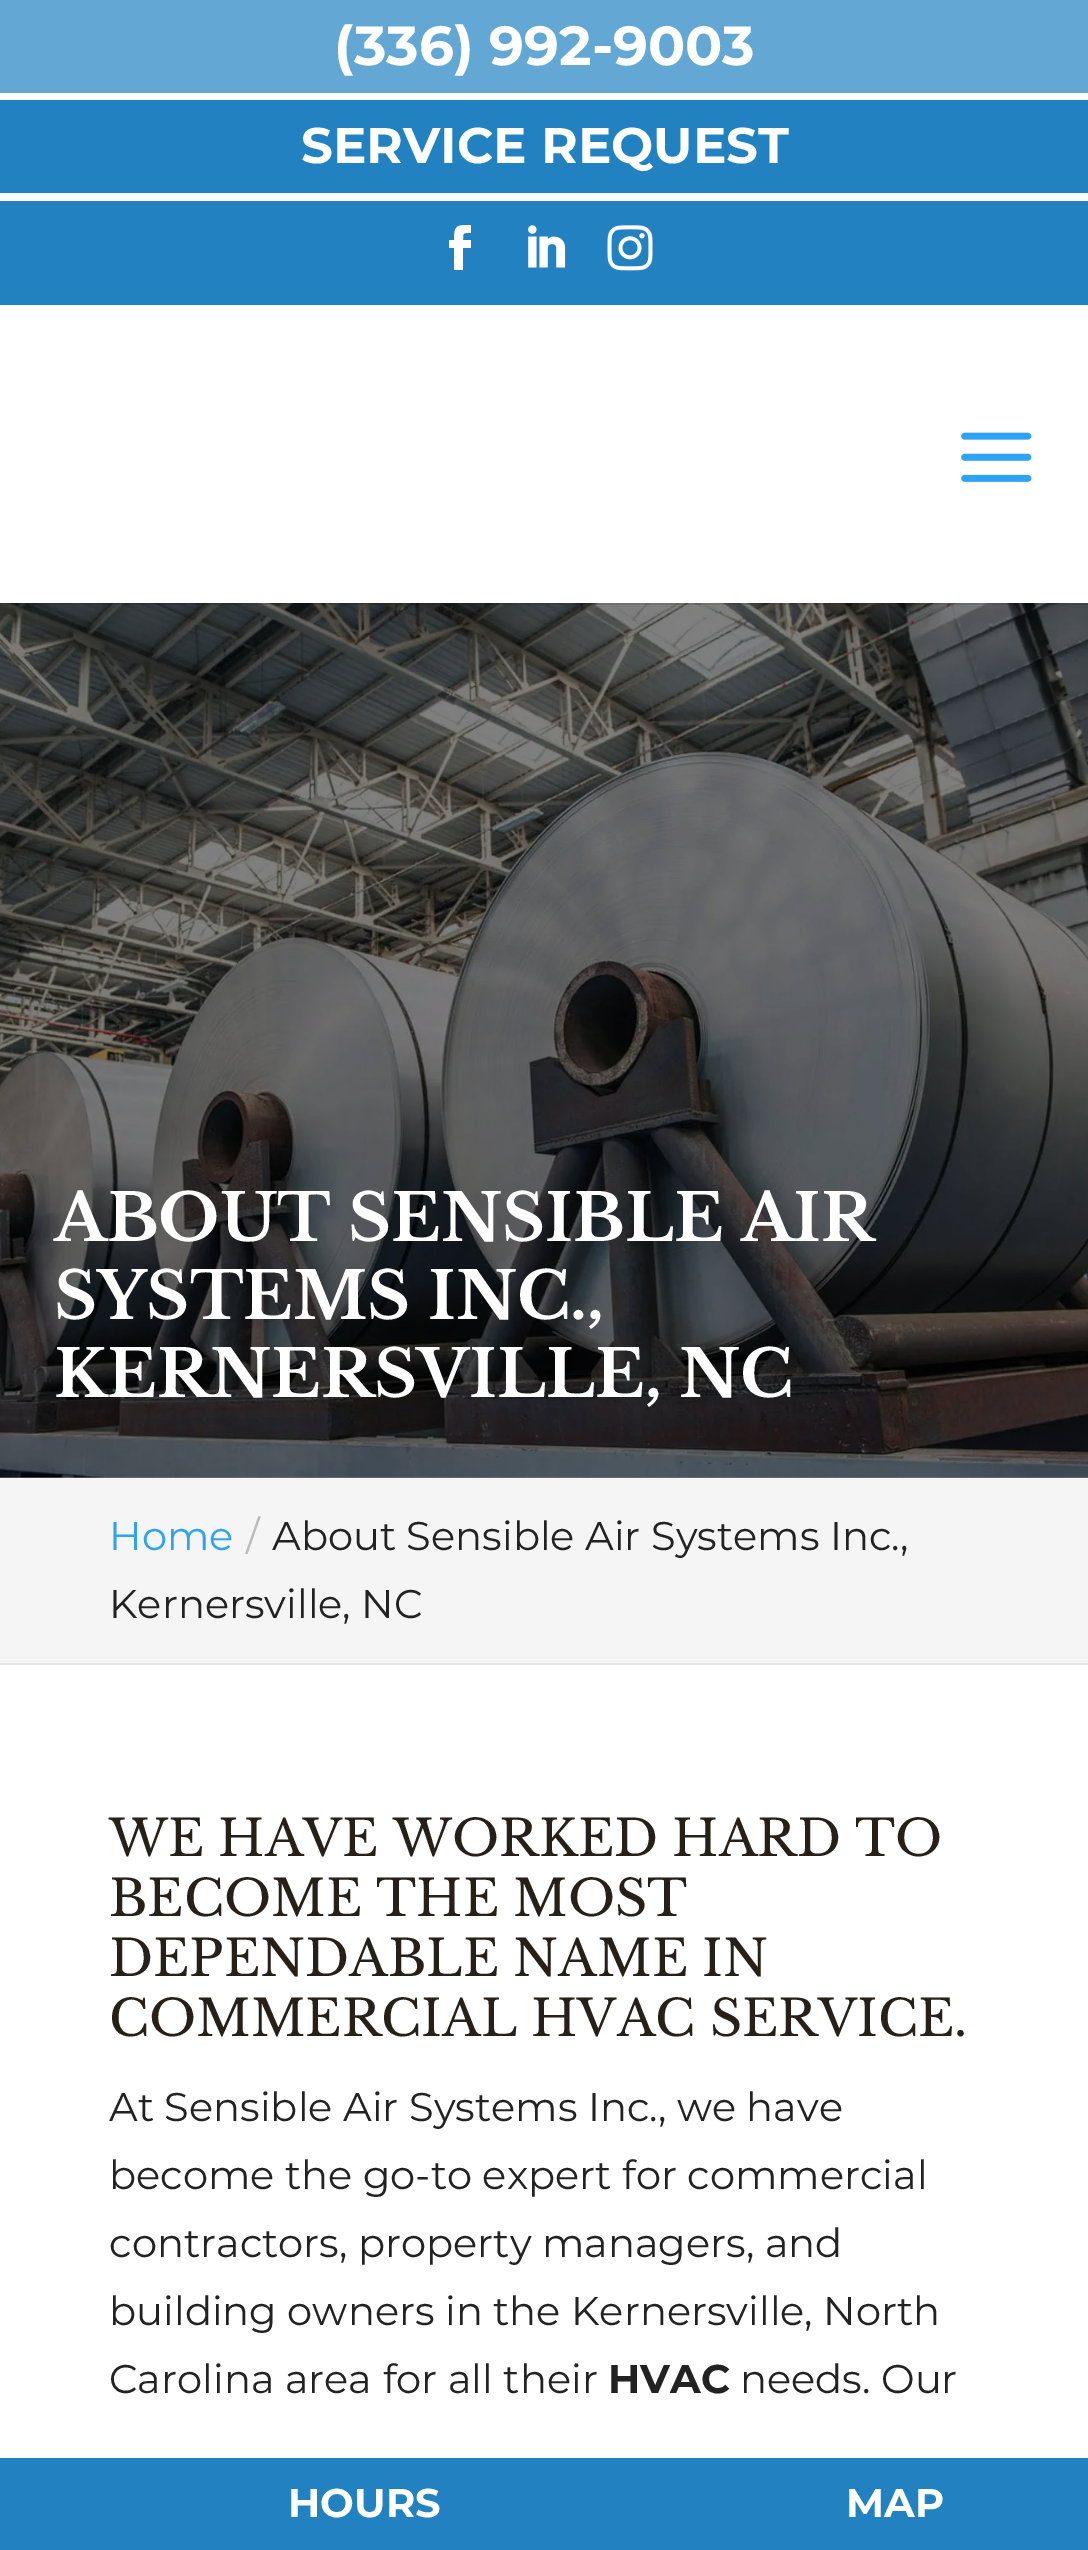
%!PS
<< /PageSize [1088 2550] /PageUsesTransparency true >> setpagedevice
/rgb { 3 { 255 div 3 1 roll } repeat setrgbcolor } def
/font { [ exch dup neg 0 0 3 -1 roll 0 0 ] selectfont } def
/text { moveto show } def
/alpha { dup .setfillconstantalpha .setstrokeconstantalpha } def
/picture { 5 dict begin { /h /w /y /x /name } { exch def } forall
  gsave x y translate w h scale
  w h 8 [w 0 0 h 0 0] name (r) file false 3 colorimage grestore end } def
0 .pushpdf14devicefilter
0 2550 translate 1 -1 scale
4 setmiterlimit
255 255 255 rgb
0 0 1088 2550 rectfill
128 128 128 rgb
0 1477 1088 1 rectfill
99 167 212 rgb
0 0 1088 93 rectfill
33 129 193 rgb
0 100 1088 93 rectfill
0.95 alpha
21 122 190 rgb
0 2458 1088 92 rectfill
1 alpha
(img_01.rgb) 0 603 1088 875 picture
230 230 230 rgb
0 1663 1088 2 rectfill
245 245 245 rgb
0 1478 1088 185 rectfill
33 129 193 rgb
0 201 1088 104 rectfill
255 255 255 rgb
454 270 moveto 9 0 rlineto 0 -22 rlineto 8 0 rlineto 0 -8 rlineto -8 0 rlineto 0 -8 0 -7 8 -7 rcurveto 0 -8 rlineto -14 0 -17 0 -17 15 rcurveto -5 0 rlineto 0 8 rlineto 5 0 rlineto closepath fill
(img_02.rgb) 528 225 38 43 picture
(img_03.rgb) 607 225 46 46 picture
0.1 alpha
0 0 0 rgb
0 603 1088 2 rectfill
1 alpha
(img_04.rgb) 961 432 71 50 picture
/Montserrat-Bold 55 font
255 255 255 rgb
(\(336\) 992-9003) 334 65 text
/Montserrat-Bold 50 font
(SERVICE REQUEST) 301 163 text
/Montserrat-Bold 40 font
(HOURS) 288 2517 text
(MAP) 846 2517 text
/LibreBaskerville-Bold 65 font
(ABOUT SENSIBLE AIR) 54 1241 text
(SYSTEMS INC.,) 54 1319 text
(KERNERSVILLE, NC) 54 1397 text
/Montserrat-Regular 40 font
46 163 242 rgb
(Home) 109 1550 text
187 187 187 rgb
(/) 246 1550 text
34 34 34 rgb
(About Sensible Air Systems Inc.,) 272 1550 text
(Kernersville, NC) 109 1618 text
/LibreBaskerville-Regular 50 font
39 32 24 rgb
(WE HAVE WORKED HARD TO) 109 1856 text
(BECOME THE MOST) 109 1916 text
(DEPENDABLE NAME IN) 109 1976 text
(COMMERCIAL HVAC SERVICE.) 109 2036 text
/Montserrat-Regular 40 font
34 34 34 rgb
(At Sensible Air Systems Inc., we have) 109 2121 text
(become the go-to expert for commercial) 109 2189 text
(contractors, property managers, and) 109 2257 text
(building owners in the Kernersville, North) 109 2325 text
(Carolina area for all their) 109 2393 text
/Montserrat-Bold 40 font
(HVAC) 608 2393 text
/Montserrat-Regular 40 font
(needs. Our) 740 2393 text
.poppdf14devicefilter showpage
